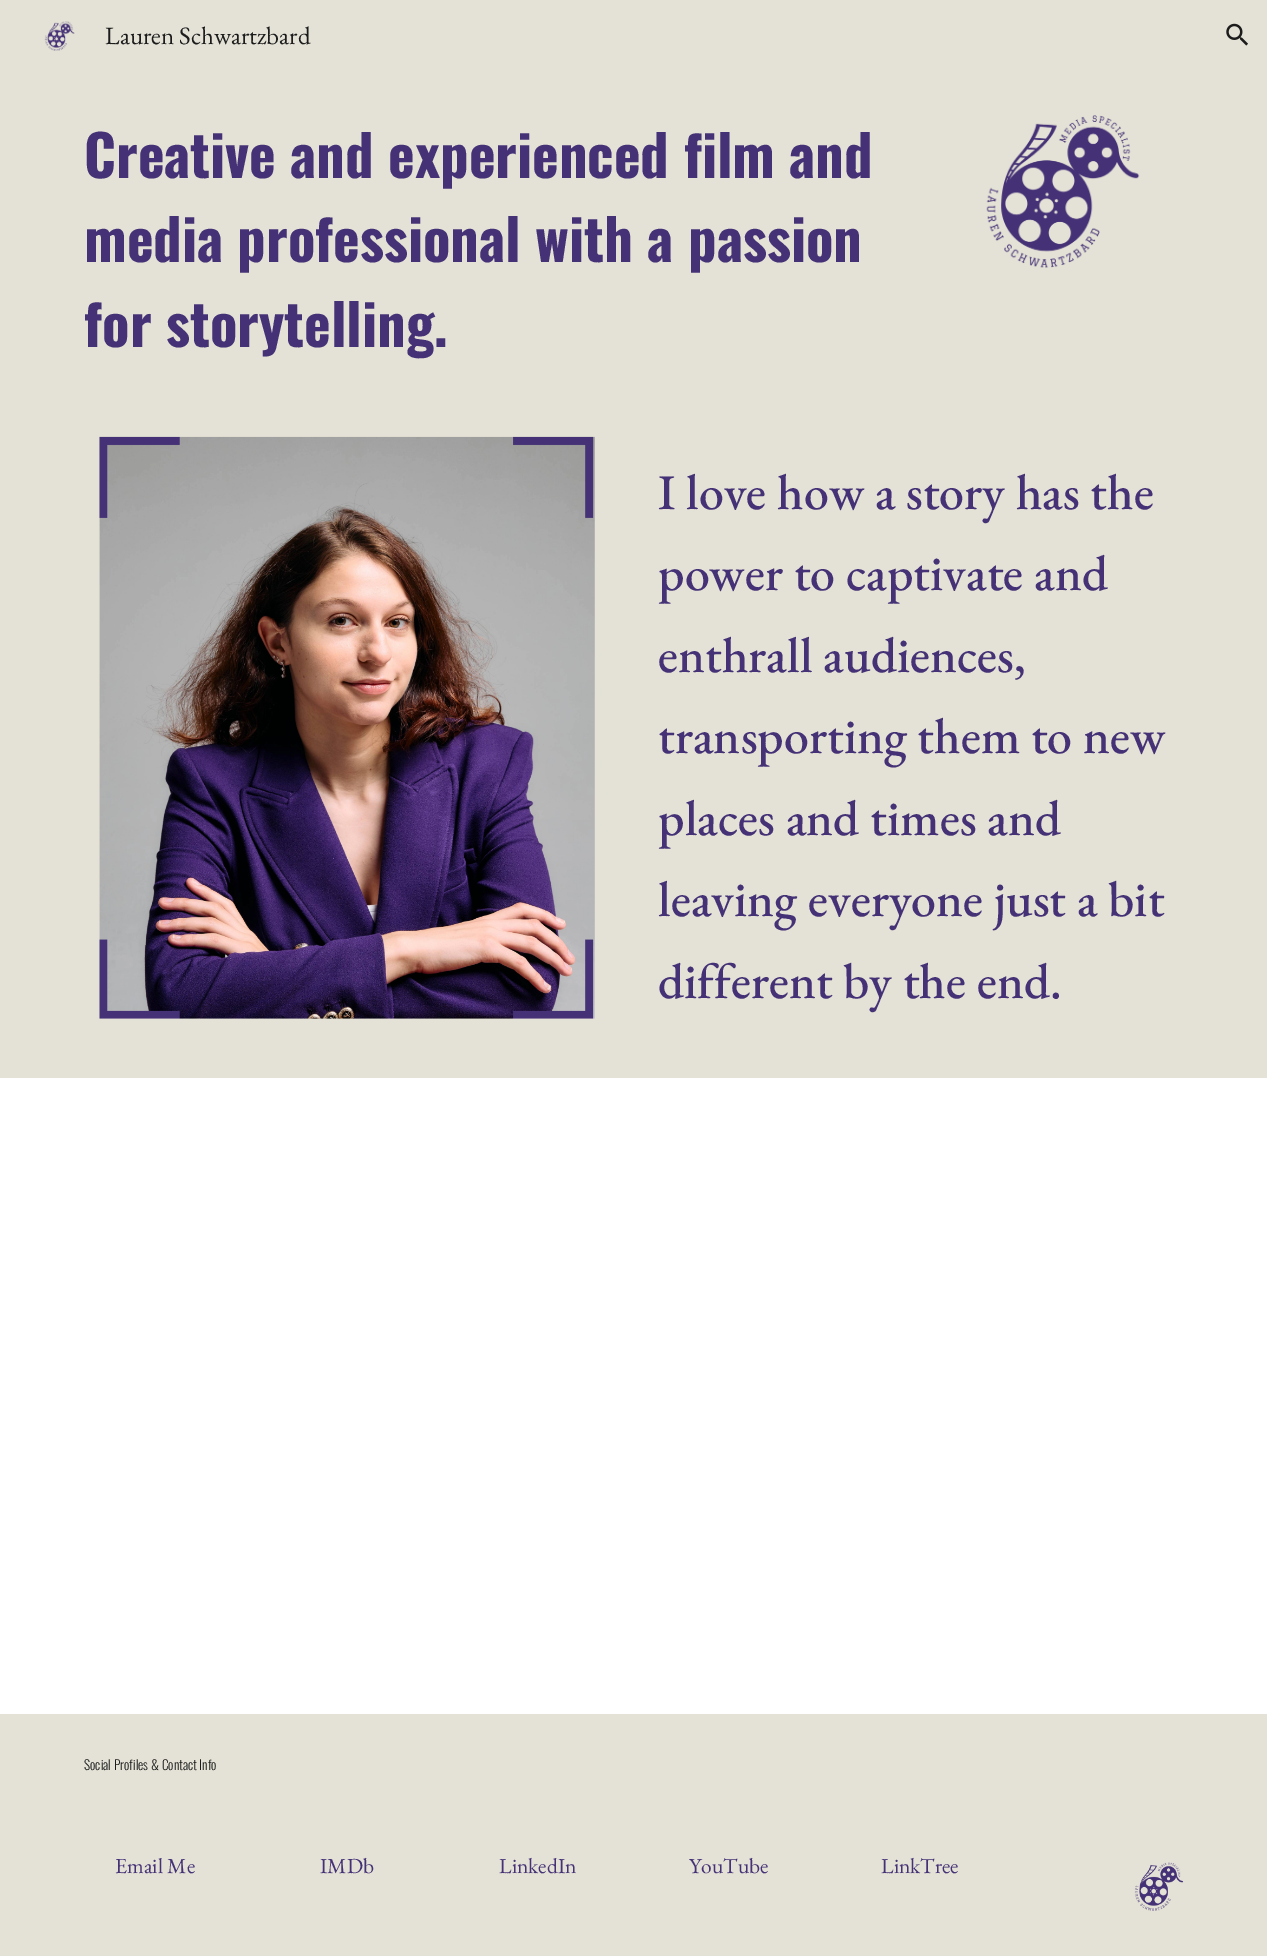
%!PS
<< /PageSize [1267 1956] >> setpagedevice
/rgb { 3 { 255 div 3 1 roll } repeat setrgbcolor } def
/font { [ exch dup neg 0 0 3 -1 roll 0 0 ] selectfont } def
/text { moveto show } def
/picture { 5 dict begin { /h /w /y /x /name } { exch def } forall
  gsave x y translate w h scale
  w h 8 [w 0 0 h 0 0] name (r) file false 3 colorimage grestore end } def
0 1956 translate 1 -1 scale
4 setmiterlimit
255 255 255 rgb
0 0 1267 1956 rectfill
228 226 214 rgb
0 0 1267 1078 rectfill
(img_01.rgb) 44 21 31 30 picture
(img_02.rgb) 1226 23 22 23 picture
(img_03.rgb) 986 115 154 153 picture
(img_04.rgb) 99 436 496 583 picture
0 1714 1267 242 rectfill
(img_05.rgb) 1134 1862 50 49 picture
/EBGaramond-Regular 25 font
28 28 28 rgb
(Lauren Schwartzbard) 105 44 text
/Oswald-Bold 56.7 font
69 49 118 rgb
(Creative and experienced film and) 84 178 text
(media professional with a passion) 84 262 text
(for storytelling.) 84 347 text
/EBGaramond-Medium 50 font
(I love how a story has the) 658 509 text
(power to captivate and) 658 590 text
(enthrall audiences,) 658 672 text
(transporting them to new) 658 753 text
(places and times and) 658 835 text
(leaving everyone just a bit) 658 916 text
(different by the end.) 658 998 text
/Oswald-Light 13.25 font
28 28 28 rgb
(Social Profiles & Contact Info) 84 1770 text
/EBGaramond-Regular 21.5 font
69 49 118 rgb
(Email Me) 115 1873 text
(IMDb) 320 1873 text
(LinkedIn) 499 1873 text
(YouTube) 689 1873 text
(LinkTree) 881 1873 text
showpage
